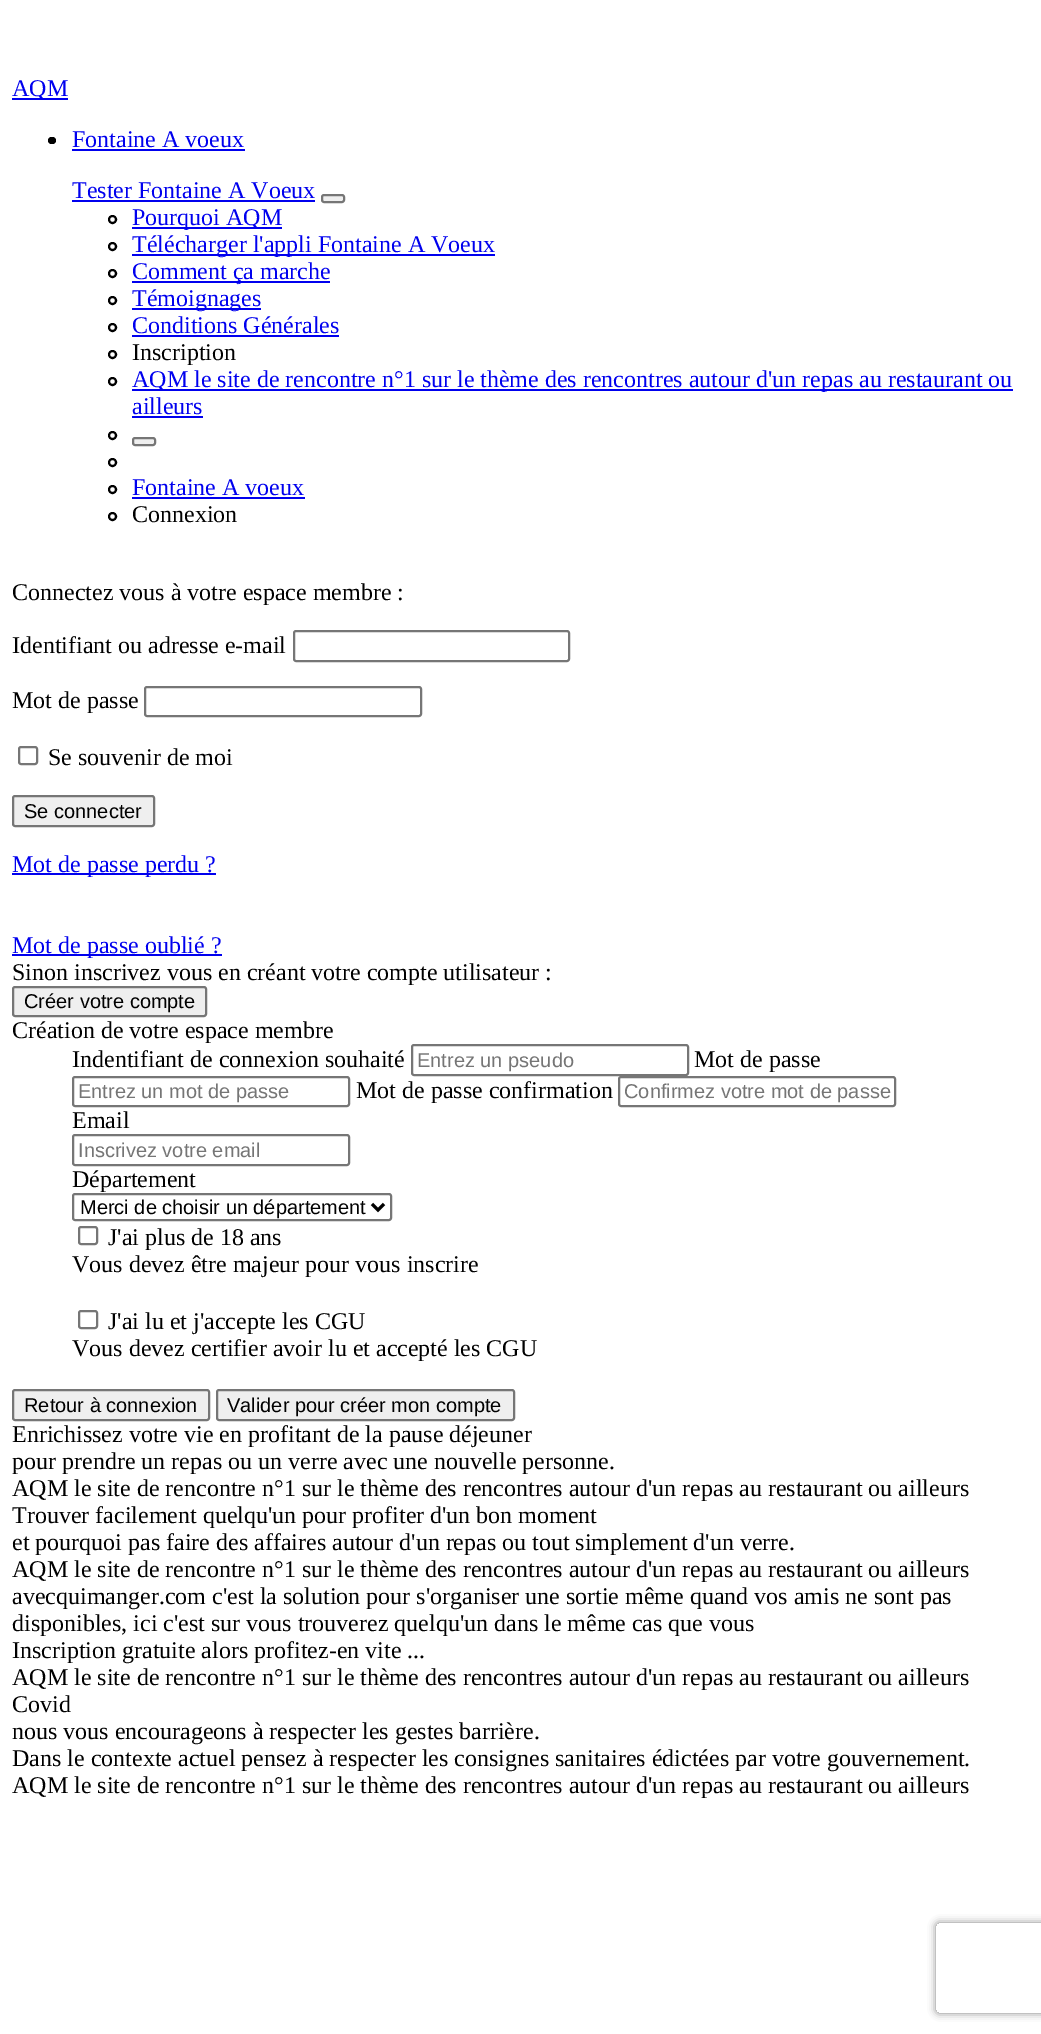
%!PS
<< /PageSize [1041 2034] /PageUsesTransparency true >> setpagedevice
/rgb { 3 { 255 div 3 1 roll } repeat setrgbcolor } def
/font { [ exch dup neg 0 0 3 -1 roll 0 0 ] selectfont } def
/text { moveto show } def
/alpha { dup .setfillconstantalpha .setstrokeconstantalpha } def
/circle { newpath 0 360 arc closepath } def
/roundrect { 5 dict begin { /r /h /w /y /x } { exch def } forall
  x r add y moveto x w add y 2 copy h add r arct x w add y h add x 1 index r arct
  x y h add x y r arct x y 2 copy exch w add exch r arct closepath end } def
/shadow { 12 dict begin { /a /b /q /h /w /y /x } { exch def } forall gsave /was 0 def
  9 -2 -9 { dup b mul 4 div /e exch def 1 sub .425 mul 2.718 exch exp 1 add a .99 .min exch div /now exch def
    1 1 now sub 1 was sub div sub alpha /was now def
    w h .min e 2 mul add 0 gt { x e sub y e sub w e 2 mul add h e 2 mul add
      q e add b .6 mul add w h .min 2 div e add .min 0 .max roundrect fill } if } for grestore end } def
0 .pushpdf14devicefilter
0 2034 translate 1 -1 scale
4 setmiterlimit
255 255 255 rgb
0 0 1041 2034 rectfill
0 0 238 rgb
12 98 56 2 rectfill
0 0 0 rgb
48 137 8 7 3.5 roundrect fill
0 0 238 rgb
72 149 173 2 rectfill
72 200 243 2 rectfill
239 239 239 rgb
322 195 22 7 2 roundrect gsave fill grestore
118 118 118 rgb
2 setlinewidth
stroke
0 0 0 rgb
112.5 219.5 3.5 circle stroke
0 0 238 rgb
132 227 150 2 rectfill
0 0 0 rgb
112.5 246.5 3.5 circle stroke
0 0 238 rgb
132 254 363 2 rectfill
0 0 0 rgb
112.5 273.5 3.5 circle stroke
0 0 238 rgb
132 281 198 2 rectfill
0 0 0 rgb
112.5 300.5 3.5 circle stroke
0 0 238 rgb
132 308 129 2 rectfill
0 0 0 rgb
112.5 327.5 3.5 circle stroke
0 0 238 rgb
132 335 207 2 rectfill
0 0 0 rgb
112.5 354.5 3.5 circle stroke
112.5 381.5 3.5 circle stroke
0 0 238 rgb
132 389 881 2 rectfill
132 416 71 2 rectfill
0 0 0 rgb
112.5 435.5 3.5 circle stroke
239 239 239 rgb
133 438 22 7 2 roundrect gsave fill grestore
118 118 118 rgb
stroke
0 0 0 rgb
112.5 462.5 3.5 circle stroke
112.5 489.5 3.5 circle stroke
0 0 238 rgb
132 497 173 2 rectfill
0 0 0 rgb
112.5 516.5 3.5 circle stroke
118 118 118 rgb
294 631 275 30 2 roundrect stroke
145 687 276 29 2 roundrect stroke
19 747 18 17 2 roundrect stroke
239 239 239 rgb
13 796 141 30 2 roundrect gsave fill grestore
118 118 118 rgb
stroke
0 0 238 rgb
12 873 204 2 rectfill
12 954 210 2 rectfill
239 239 239 rgb
13 987 193 29 2 roundrect gsave fill grestore
118 118 118 rgb
stroke
412 1045 276 30 2 roundrect stroke
73 1077 276 29 2 roundrect stroke
619 1077 276 29 2 roundrect stroke
73 1135 276 30 2 roundrect stroke
73 1194 318 26 2 roundrect stroke
0 0 0 rgb
3 setlinewidth
372 1204 moveto 6 6 rlineto 6 -6 rlineto stroke
118 118 118 rgb
2 setlinewidth
79 1227 18 17 2 roundrect stroke
79 1311 18 17 2 roundrect stroke
239 239 239 rgb
13 1390 196 30 2 roundrect gsave fill grestore
118 118 118 rgb
stroke
239 239 239 rgb
217 1390 297 30 2 roundrect gsave fill grestore
118 118 118 rgb
stroke
gsave
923 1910 moveto 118 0 rlineto 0 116 rlineto -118 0 rlineto closepath 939 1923 moveto 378 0 rlineto 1.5 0 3 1.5 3 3 rcurveto 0 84 rlineto 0 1.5 -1.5 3 -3 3 rcurveto -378 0 rlineto -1.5 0 -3 -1.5 -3 -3 rcurveto 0 -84 rlineto 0 -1.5 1.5 -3 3 -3 rcurveto closepath eoclip newpath
128 128 128 rgb
936 1923 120 90 3 4 1 shadow
grestore
/LiberationSerif-Regular 24 font
0 0 238 rgb
(AQM) 12 96 text
(Fontaine A voeux) 72 147 text
(Tester Fontaine A Voeux) 72 198 text
(Pourquoi AQM) 132 225 text
(Télécharger l'appli Fontaine A Voeux) 132 252 text
(Comment ça marche) 132 279 text
(Témoignages) 132 306 text
(Conditions Générales) 132 333 text
0 0 0 rgb
(Inscription) 132 360 text
0 0 238 rgb
(AQM le site de rencontre n°1 sur le thème des rencontres autour d'un repas au restaurant ou) 132 387 text
(ailleurs) 132 414 text
(Fontaine A voeux) 132 495 text
0 0 0 rgb
(Connexion) 132 522 text
(Connectez vous à votre espace membre :) 12 600 text
(Identifiant ou adresse e-mail) 12 653 text
(Mot de passe) 12 708 text
(Se souvenir de moi) 48 765 text
/LiberationSans-Regular 20 font
(Se connecter) 24 818 text
/LiberationSerif-Regular 24 font
0 0 238 rgb
(Mot de passe perdu ?) 12 872 text
(Mot de passe oublié ?) 12 953 text
0 0 0 rgb
(Sinon inscrivez vous en créant votre compte utilisateur :) 12 980 text
/LiberationSans-Regular 20 font
(Créer votre compte) 24 1008 text
/LiberationSerif-Regular 24 font
(Création de votre espace membre) 12 1038 text
(Indentifiant de connexion souhaité) 72 1067 text
/LiberationSans-Regular 20 font
117 117 117 rgb
(Entrez un pseudo) 417 1067 text
/LiberationSerif-Regular 24 font
0 0 0 rgb
(Mot de passe) 694 1067 text
/LiberationSans-Regular 20 font
117 117 117 rgb
(Entrez un mot de passe) 78 1098 text
/LiberationSerif-Regular 24 font
0 0 0 rgb
(Mot de passe confirmation) 356 1098 text
/LiberationSans-Regular 20 font
117 117 117 rgb
(Confirmez votre mot de passe) 624 1098 text
/LiberationSerif-Regular 24 font
0 0 0 rgb
(Email) 72 1128 text
/LiberationSans-Regular 20 font
117 117 117 rgb
(Inscrivez votre email) 78 1157 text
/LiberationSerif-Regular 24 font
0 0 0 rgb
(Département) 72 1187 text
/LiberationSans-Regular 20 font
(Merci de choisir un département) 80 1214 text
/LiberationSerif-Regular 24 font
(J'ai plus de 18 ans) 108 1245 text
(Vous devez être majeur pour vous inscrire) 72 1272 text
(J'ai lu et j'accepte les CGU) 108 1329 text
(Vous devez certifier avoir lu et accepté les CGU) 72 1356 text
/LiberationSans-Regular 20 font
(Retour à connexion) 24 1412 text
(Valider pour créer mon compte) 227 1412 text
/LiberationSerif-Regular 24 font
(Enrichissez votre vie en profitant de la pause déjeuner) 12 1442 text
(pour prendre un repas ou un verre avec une nouvelle personne.) 12 1469 text
(AQM le site de rencontre n°1 sur le thème des rencontres autour d'un repas au restaurant ou ailleurs) 12 1496 text
(Trouver facilement quelqu'un pour profiter d'un bon moment) 12 1523 text
(et pourquoi pas faire des affaires autour d'un repas ou tout simplement d'un verre.) 12 1550 text
(AQM le site de rencontre n°1 sur le thème des rencontres autour d'un repas au restaurant ou ailleurs) 12 1577 text
(avecquimanger.com c'est la solution pour s'organiser une sortie même quand vos amis ne sont pas) 12 1604 text
(disponibles, ici c'est sur vous trouverez quelqu'un dans le même cas que vous) 12 1631 text
(Inscription gratuite alors profitez-en vite ...) 12 1658 text
(AQM le site de rencontre n°1 sur le thème des rencontres autour d'un repas au restaurant ou ailleurs) 12 1685 text
(Covid) 12 1712 text
(nous vous encourageons à respecter les gestes barrière.) 12 1739 text
(Dans le contexte actuel pensez à respecter les consignes sanitaires édictées par votre gouvernement.) 12 1766 text
(AQM le site de rencontre n°1 sur le thème des rencontres autour d'un repas au restaurant ou ailleurs) 12 1793 text
.poppdf14devicefilter showpage
